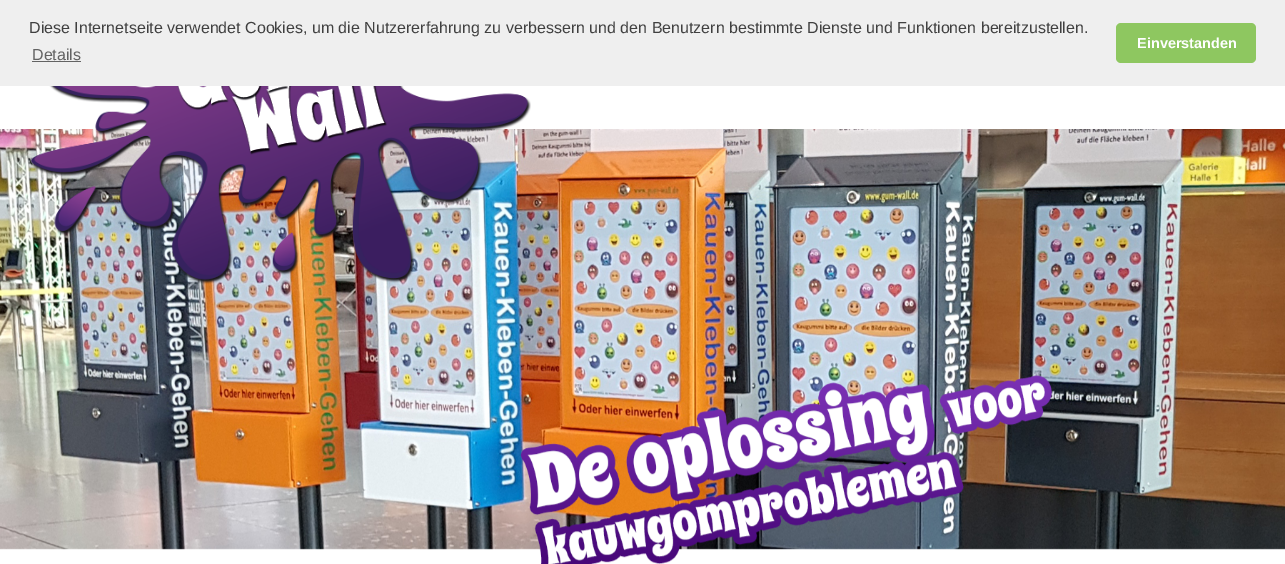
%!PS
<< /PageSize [1285 564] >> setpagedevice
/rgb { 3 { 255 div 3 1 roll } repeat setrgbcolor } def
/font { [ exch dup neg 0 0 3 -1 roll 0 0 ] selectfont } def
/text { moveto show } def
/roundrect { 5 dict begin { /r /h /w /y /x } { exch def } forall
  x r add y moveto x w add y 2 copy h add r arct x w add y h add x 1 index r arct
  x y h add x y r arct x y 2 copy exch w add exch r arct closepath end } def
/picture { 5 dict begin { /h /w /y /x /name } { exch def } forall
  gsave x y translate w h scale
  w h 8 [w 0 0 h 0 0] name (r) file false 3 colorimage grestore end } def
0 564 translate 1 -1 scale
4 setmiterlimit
255 255 255 rgb
0 0 1285 564 rectfill
239 239 239 rgb
0 0 1285 86 rectfill
99 99 99 rgb
32 61 49 1 rectfill
142 199 96 rgb
1116 23 140 40 5 roundrect fill
(img_02.rgb) 0 129 1285 435 picture
(img_01.rgb) 31 86 500 198 picture
/LiberationSans-Regular 16 font
64 64 64 rgb
(Diese Internetseite verwendet Cookies, um die Nutzererfahrung zu verbessern und den Benutzern bestimmte Dienste und Funktionen bereitzustellen.) 29 33 text
99 99 99 rgb
(Details) 32 60 text
/LiberationSans-Bold 14.5 font
255 255 255 rgb
(Einverstanden) 1137 48 text
showpage
